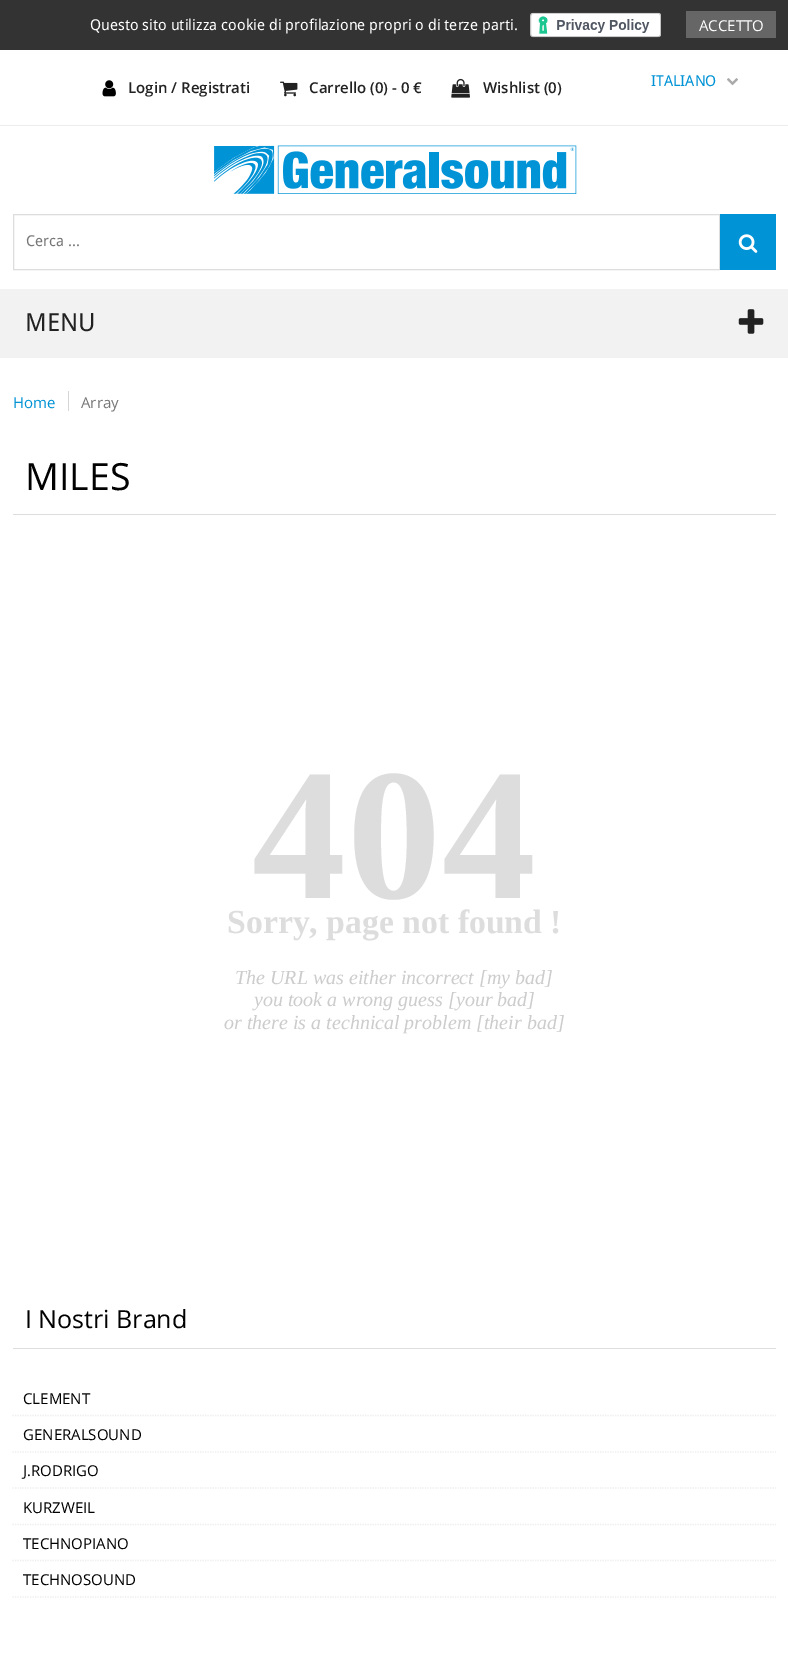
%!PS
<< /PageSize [788 1656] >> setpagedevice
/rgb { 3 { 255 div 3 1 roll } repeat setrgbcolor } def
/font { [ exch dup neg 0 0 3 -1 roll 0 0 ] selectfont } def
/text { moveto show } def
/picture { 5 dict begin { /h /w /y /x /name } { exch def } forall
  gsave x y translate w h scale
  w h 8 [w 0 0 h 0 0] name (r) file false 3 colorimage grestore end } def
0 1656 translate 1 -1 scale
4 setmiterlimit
255 255 255 rgb
0 0 788 1656 rectfill
51 51 51 rgb
0 0 788 50 rectfill
(img_01.rgb) 530 12 131 26 picture
102 102 102 rgb
686 11 90 27 rectfill
237 237 237 rgb
0 125 788 1 rectfill
(img_02.rgb) 102 80 14 17 picture
(img_03.rgb) 280 81 18 16 picture
(img_04.rgb) 451 78 19 20 picture
(img_05.rgb) 727 78 11 8 picture
(img_06.rgb) 214 145 363 49 picture
221 221 221 rgb
13.5 214.5 706 55 rectstroke
0 147 214 rgb
720 214 56 56 rectfill
(img_07.rgb) 738 234 20 19 picture
242 242 242 rgb
0 289 788 69 rectfill
(img_08.rgb) 738 309 26 25 picture
214 212 212 rgb
68 391 1 20 rectfill
221 221 221 rgb
13 514 763 1 rectfill
13 1348 763 1 rectfill
238 238 238 rgb
1.2 setlinewidth
[1.25 1.25] 0 setdash
12.5 1415.5 moveto 763.5 0 rlineto stroke
12.5 1452 moveto 763.5 0 rlineto stroke
12.5 1488 moveto 763.5 0 rlineto stroke
12.5 1524.5 moveto 763.5 0 rlineto stroke
12.5 1560.5 moveto 763.5 0 rlineto stroke
12.5 1597 moveto 763.5 0 rlineto stroke
/DroidSans-Regular 15 font
255 255 255 rgb
(Questo sito utilizza cookie di profilazione propri o di terze parti.) 90 30 text
/OpenSans-Regular 15 font
(ACCETTO) 699 31 text
/OpenSans-SemiBold 15 font
34 34 34 rgb
(Login / Registrati) 128 93 text
(Carrello \(0\) - 0 €) 309 93 text
(Wishlist \(0\)) 483 93 text
/DroidSans-Regular 15 font
0 147 214 rgb
(ITALIANO) 651 86 text
119 119 119 rgb
(Cerca ...) 26 246 text
/DroidSans-Regular 25 font
34 34 34 rgb
(MENU) 25 331 text
/OpenSans-Regular 15 font
0 147 214 rgb
(Home) 13 408 text
119 119 119 rgb
(Array) 81 408 text
/OpenSans-Regular 37.5 font
1 1 1 rgb
(MILES) 25 490 text
/LiberationSerif-Bold 188 font
221 221 221 rgb
252 898 moveto 1 0 (404) ashow
/LiberationSerif-Bold 33.75 font
(Sorry, page not found !) 227 933 text
/LiberationSerif-Italic 20 font
204 204 204 rgb
(The URL was either incorrect [my bad]) 235 984 text
(you took a wrong guess [your bad]) 254 1006 text
(or there is a technical problem [their bad]) 224 1029 text
/OpenSans-Regular 25 font
1 1 1 rgb
(I Nostri Brand) 25 1328 text
/OpenSans-Regular 15 font
(CLEMENT) 23 1404 text
(GENERALSOUND) 23 1440 text
(J.RODRIGO) 23 1476 text
(KURZWEIL) 23 1513 text
(TECHNOPIANO) 23 1549 text
(TECHNOSOUND) 23 1585 text
showpage
